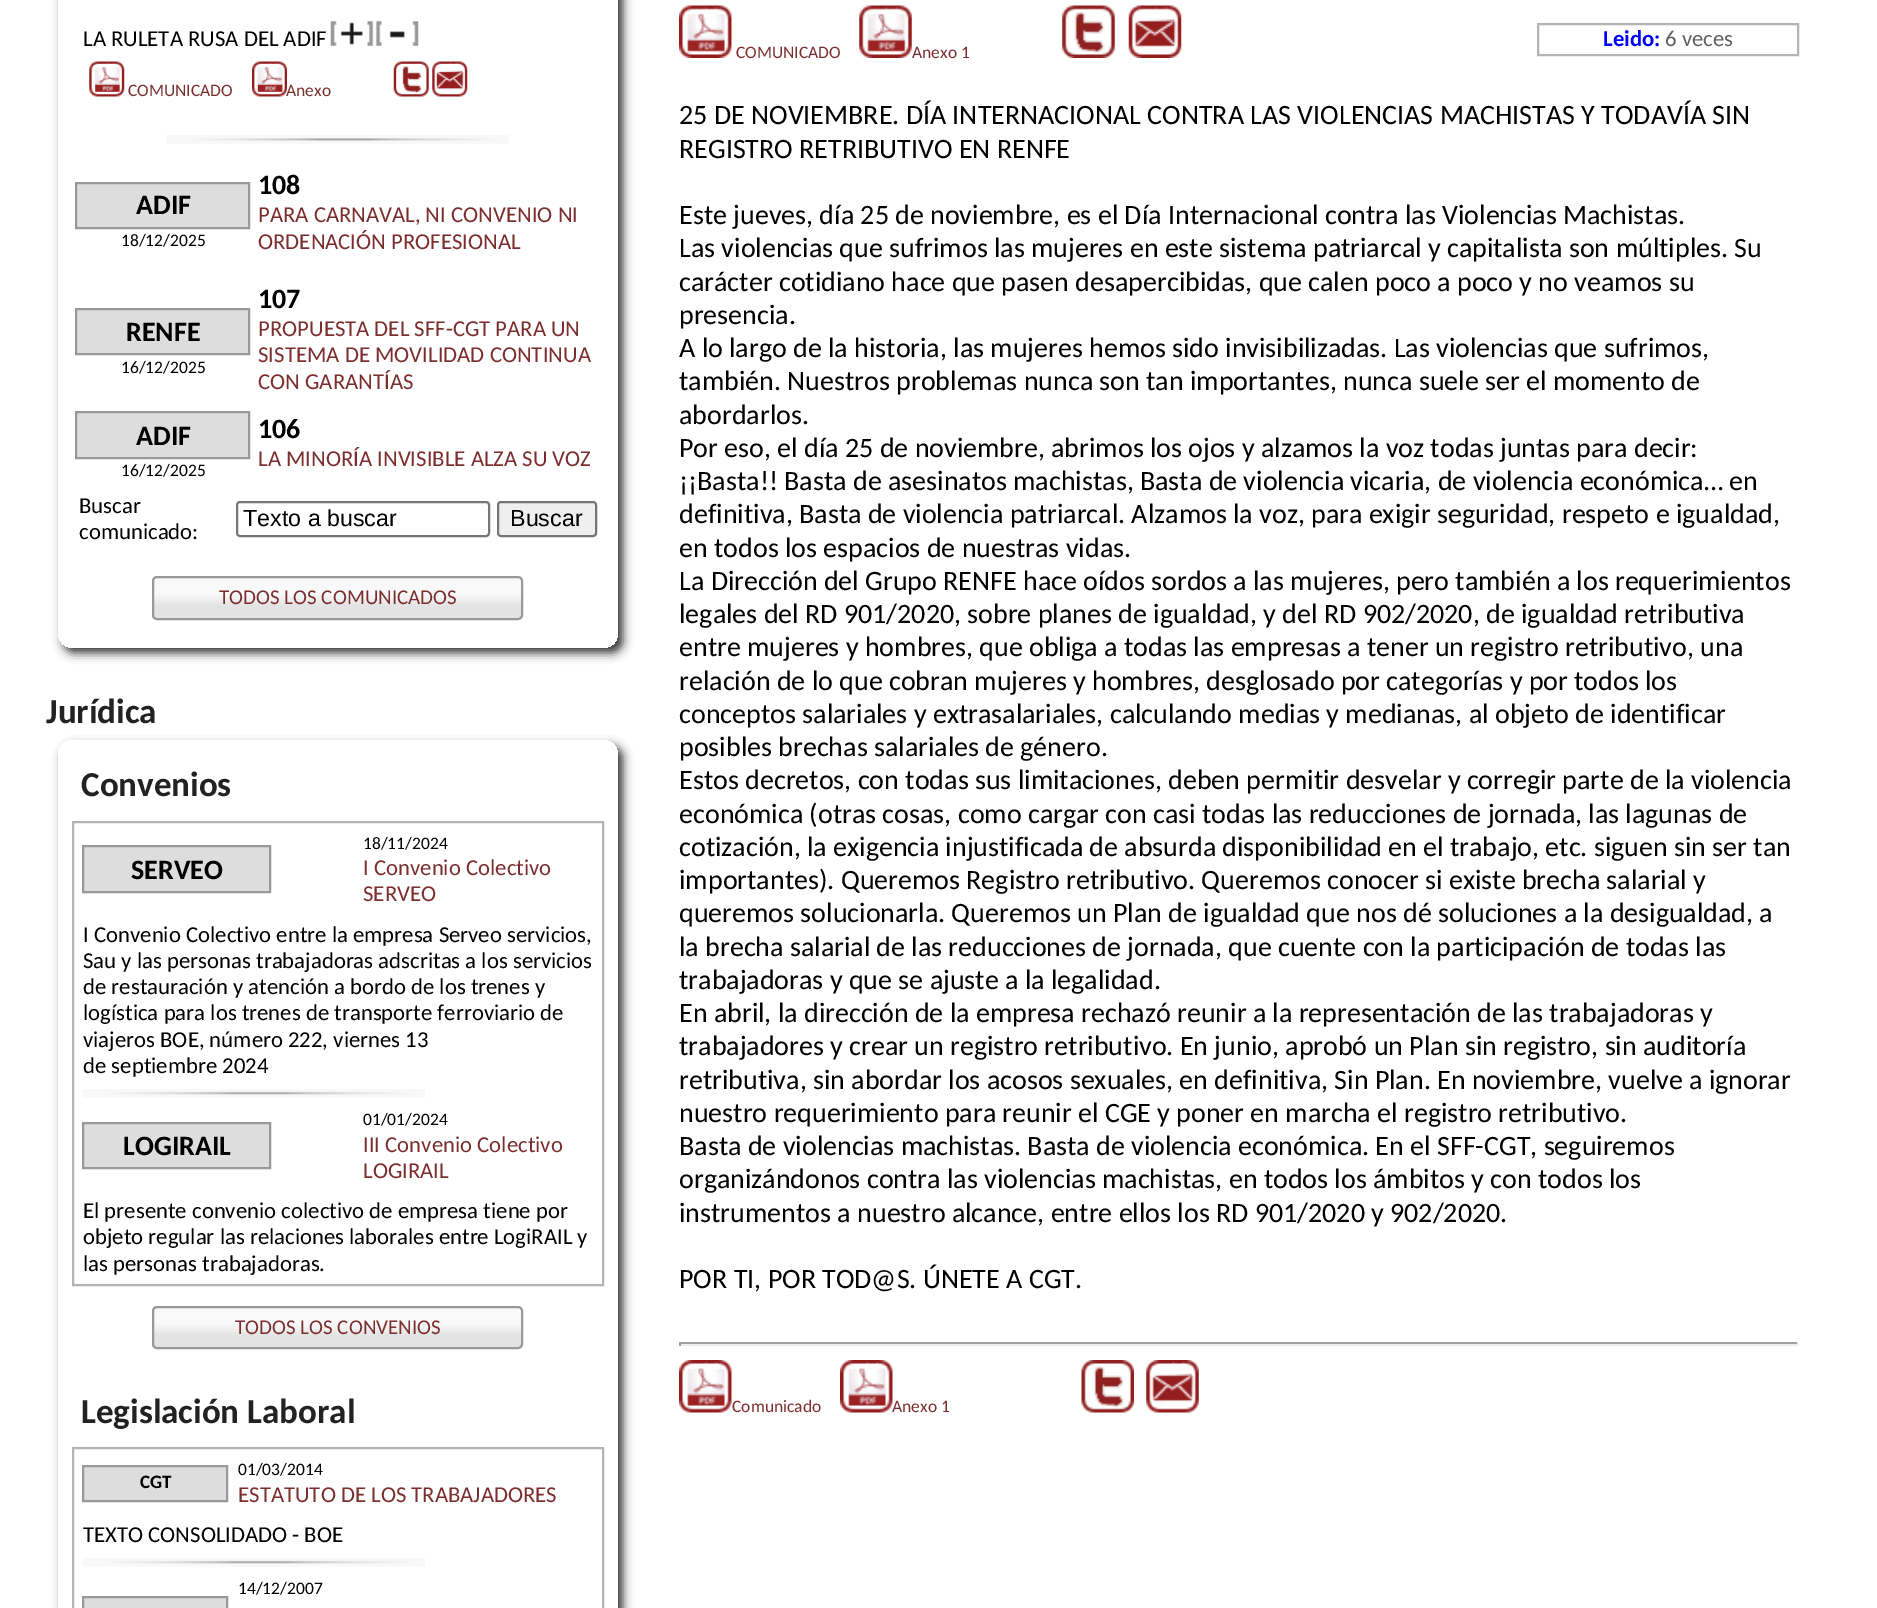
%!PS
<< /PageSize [1877 1608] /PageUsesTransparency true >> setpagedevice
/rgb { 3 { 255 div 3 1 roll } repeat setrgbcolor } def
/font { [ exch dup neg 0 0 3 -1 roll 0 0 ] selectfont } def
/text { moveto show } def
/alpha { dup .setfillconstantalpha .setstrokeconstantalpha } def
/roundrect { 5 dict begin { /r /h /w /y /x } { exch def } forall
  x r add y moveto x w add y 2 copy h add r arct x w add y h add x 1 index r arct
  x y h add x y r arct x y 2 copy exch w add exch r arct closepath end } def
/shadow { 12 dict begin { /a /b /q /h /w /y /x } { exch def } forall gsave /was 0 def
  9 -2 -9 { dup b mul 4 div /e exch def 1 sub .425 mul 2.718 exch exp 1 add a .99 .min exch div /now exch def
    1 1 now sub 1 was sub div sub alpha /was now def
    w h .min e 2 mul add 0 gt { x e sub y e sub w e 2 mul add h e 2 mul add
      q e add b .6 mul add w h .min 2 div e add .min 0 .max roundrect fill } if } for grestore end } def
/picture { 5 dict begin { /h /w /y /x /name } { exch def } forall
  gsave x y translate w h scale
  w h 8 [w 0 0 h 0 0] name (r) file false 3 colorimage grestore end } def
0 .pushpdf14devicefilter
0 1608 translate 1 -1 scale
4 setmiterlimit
255 255 255 rgb
0 0 1877 1608 rectfill
gsave
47 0 moveto 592 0 rlineto 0 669 rlineto -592 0 rlineto closepath 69 -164 moveto 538 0 rlineto 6 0 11 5 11 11 rcurveto 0 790 rlineto 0 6 -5 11 -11 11 rcurveto -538 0 rlineto -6 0 -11 -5 -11 -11 rcurveto 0 -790 rlineto 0 -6 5 -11 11 -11 rcurveto closepath eoclip newpath
51 51 51 rgb
63 -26 560 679 11 5 1 shadow
grestore
(img_01.rgb) 330 21 89 25 picture
(img_02.rgb) 89 61 36 36 picture
(img_03.rgb) 252 61 35 36 picture
(img_04.rgb) 393 61 36 36 picture
(img_05.rgb) 432 61 36 36 picture
(img_06.rgb) 166 135 343 9 picture
221 221 221 rgb
76 183 moveto 173 0 rlineto 0 45 rlineto -173 0 rlineto closepath gsave fill grestore
153 153 153 rgb
2 setlinewidth
stroke
221 221 221 rgb
76 309 moveto 173 0 rlineto 0 45 rlineto -173 0 rlineto closepath gsave fill grestore
153 153 153 rgb
stroke
221 221 221 rgb
76 412 moveto 173 0 rlineto 0 46 rlineto -173 0 rlineto closepath gsave fill grestore
153 153 153 rgb
stroke
118 118 118 rgb
237 502 252 34 3 roundrect stroke
239 239 239 rgb
498 502 98 34 3 roundrect gsave fill grestore
118 118 118 rgb
stroke
gsave
152 576 371 44 5 roundrect clip newpath
gsave 152 578 moveto 371 0 rlineto 0 40 rlineto -371 0 rlineto closepath clip newpath
<< /ShadingType 2 /ColorSpace /DeviceRGB /Coords [338 578 338 618] /Extend [true true] /Function << /FunctionType 3 /Domain [0 1] /Functions [<< /FunctionType 2 /Domain [0 1] /C0 [0.976 0.976 0.976] /C1 [0.976 0.976 0.976] /N 1 >> << /FunctionType 2 /Domain [0 1] /C0 [0.976 0.976 0.976] /C1 [0.89 0.89 0.89] /N 1 >> << /FunctionType 2 /Domain [0 1] /C0 [0.89 0.89 0.89] /C1 [0.89 0.89 0.89] /N 1 >>] /Bounds [0.4 0.7] /Encode [0 1 0 1 0 1] >> >> shfill grestore
grestore
153 153 153 rgb
153 577 369 42 4 roundrect stroke
gsave
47 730 moveto 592 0 rlineto 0 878 rlineto -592 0 rlineto closepath 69 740 moveto 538 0 rlineto 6 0 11 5 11 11 rcurveto 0 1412 rlineto 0 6 -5 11 -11 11 rcurveto -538 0 rlineto -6 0 -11 -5 -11 -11 rcurveto 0 -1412 rlineto 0 -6 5 -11 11 -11 rcurveto closepath eoclip newpath
51 51 51 rgb
63 746 560 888 11 5 1 shadow
grestore
180 180 180 rgb
73 822 530 463 rectstroke
221 221 221 rgb
83 846 moveto 187 0 rlineto 0 46 rlineto -187 0 rlineto closepath gsave fill grestore
153 153 153 rgb
stroke
(img_07.rgb) 82 1089 343 9 picture
221 221 221 rgb
83 1123 moveto 187 0 rlineto 0 45 rlineto -187 0 rlineto closepath gsave fill grestore
153 153 153 rgb
stroke
gsave
152 1306 371 43 5 roundrect clip newpath
gsave 152 1307 moveto 371 0 rlineto 0 41 rlineto -371 0 rlineto closepath clip newpath
<< /ShadingType 2 /ColorSpace /DeviceRGB /Coords [338 1307 338 1348] /Extend [true true] /Function << /FunctionType 3 /Domain [0 1] /Functions [<< /FunctionType 2 /Domain [0 1] /C0 [0.976 0.976 0.976] /C1 [0.976 0.976 0.976] /N 1 >> << /FunctionType 2 /Domain [0 1] /C0 [0.976 0.976 0.976] /C1 [0.89 0.89 0.89] /N 1 >> << /FunctionType 2 /Domain [0 1] /C0 [0.89 0.89 0.89] /C1 [0.89 0.89 0.89] /N 1 >>] /Bounds [0.4 0.7] /Encode [0 1 0 1 0 1] >> >> shfill grestore
grestore
153 1307 369 41 4 roundrect stroke
180 180 180 rgb
73 1448 530 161 rectstroke
221 221 221 rgb
83 1466 moveto 144 0 rlineto 0 35 rlineto -144 0 rlineto closepath gsave fill grestore
153 153 153 rgb
stroke
(img_07.rgb) 82 1558 343 9 picture
221 221 221 rgb
83 1597 moveto 144 0 rlineto 0 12 rlineto -144 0 rlineto closepath gsave fill grestore
153 153 153 rgb
stroke
180 180 180 rgb
1538 24 260 31 rectstroke
(img_08.rgb) 679 5 53 53 picture
(img_09.rgb) 859 5 53 53 picture
(img_10.rgb) 1062 5 53 53 picture
(img_11.rgb) 1128 5 54 53 picture
159 159 159 rgb
679 1342 1120 2 rectfill
238 238 238 rgb
1797 1342 2 4 rectfill
679 1344 1120 2 rectfill
159 159 159 rgb
679 1342 2 4 rectfill
(img_12.rgb) 679 1360 53 53 picture
(img_13.rgb) 840 1360 53 53 picture
(img_14.rgb) 1081 1360 53 53 picture
(img_15.rgb) 1146 1360 53 53 picture
/Carlito-Regular 22.75 font
0 0 0 rgb
(LA RULETA RUSA DEL ADIF) 83 46 text
/Carlito-Regular 17.5 font
124 46 46 rgb
(COMUNICADO) 128 96 text
(Anexo) 286 96 text
/Carlito-Bold 28 font
0 0 0 rgb
(ADIF) 136 214 text
/Carlito-Regular 17.5 font
(18/12/2025) 121 246 text
/Carlito-Bold 28 font
(108) 258 194 text
/Carlito-Regular 22.75 font
124 46 46 rgb
(PARA CARNAVAL, NI CONVENIO NI) 258 222 text
(ORDENACIÓN PROFESIONAL) 258 249 text
/Carlito-Bold 28 font
0 0 0 rgb
(RENFE) 126 341 text
/Carlito-Regular 17.5 font
(16/12/2025) 121 373 text
/Carlito-Bold 28 font
(107) 258 308 text
/Carlito-Regular 22.75 font
124 46 46 rgb
(PROPUESTA DEL SFF-CGT PARA UN) 258 336 text
(SISTEMA DE MOVILIDAD CONTINUA) 258 362 text
(CON GARANTÍAS) 258 389 text
/Carlito-Bold 28 font
0 0 0 rgb
(ADIF) 136 445 text
/Carlito-Regular 17.5 font
(16/12/2025) 121 476 text
/Carlito-Bold 28 font
(106) 258 438 text
/Carlito-Regular 22.75 font
124 46 46 rgb
(LA MINORÍA INVISIBLE ALZA SU VOZ) 258 466 text
0 0 0 rgb
(Buscar) 79 513 text
(comunicado:) 79 539 text
/LiberationSans-Regular 23.25 font
(Texto a buscar) 243 526 text
(Buscar) 510 526 text
/Carlito-Regular 21 font
124 46 46 rgb
(TODOS LOS COMUNICADOS) 219 604 text
/Carlito-Bold 35 font
34 34 34 rgb
(Jurídica) 46 723 text
(Convenios) 81 796 text
/Carlito-Bold 28 font
0 0 0 rgb
(SERVEO) 131 879 text
/Carlito-Regular 17.5 font
(18/11/2024) 363 849 text
/Carlito-Regular 22.75 font
124 46 46 rgb
(I Convenio Colectivo) 363 875 text
(SERVEO) 363 901 text
0 0 0 rgb
(I Convenio Colectivo entre la empresa Serveo servicios,) 83 942 text
(Sau y las personas trabajadoras adscritas a los servicios) 83 968 text
(de restauración y atención a bordo de los trenes y) 83 994 text
(logística para los trenes de transporte ferroviario de) 83 1020 text
(viajeros BOE, número 222, viernes 13) 83 1047 text
(de septiembre 2024) 83 1073 text
/Carlito-Bold 28 font
(LOGIRAIL) 123 1155 text
/Carlito-Regular 17.5 font
(01/01/2024) 363 1125 text
/Carlito-Regular 22.75 font
124 46 46 rgb
(III Convenio Colectivo) 363 1152 text
(LOGIRAIL) 363 1178 text
0 0 0 rgb
(El presente convenio colectivo de empresa tiene por) 83 1218 text
(objeto regular las relaciones laborales entre LogiRAIL y) 83 1244 text
(las personas trabajadoras.) 83 1271 text
/Carlito-Regular 21 font
124 46 46 rgb
(TODOS LOS CONVENIOS) 235 1334 text
/Carlito-Bold 35 font
34 34 34 rgb
(Legislación Laboral) 81 1423 text
/Carlito-Bold 19 font
0 0 0 rgb
(CGT) 140 1488 text
/Carlito-Regular 17.5 font
(01/03/2014) 238 1475 text
/Carlito-Regular 22.75 font
124 46 46 rgb
(ESTATUTO DE LOS TRABAJADORES) 238 1502 text
0 0 0 rgb
(TEXTO CONSOLIDADO - BOE) 83 1542 text
/Carlito-Regular 17.5 font
(14/12/2007) 238 1594 text
/Carlito-Bold 22.75 font
0 0 255 rgb
(Leido:) 1603 46 text
/Carlito-Regular 22.75 font
95 95 95 rgb
(6 veces) 1665 46 text
/Carlito-Regular 17.5 font
124 46 46 rgb
(COMUNICADO) 736 58 text
(Anexo 1) 912 58 text
/Carlito-Regular 28 font
0 0 0 rgb
(25 DE NOVIEMBRE. DÍA INTERNACIONAL CONTRA LAS VIOLENCIAS MACHISTAS Y TODAVÍA SIN) 679 124 text
(REGISTRO RETRIBUTIVO EN RENFE) 679 158 text
(Este jueves, día 25 de noviembre, es el Día Internacional contra las Violencias Machistas.) 679 224 text
(Las violencias que sufrimos las mujeres en este sistema patriarcal y capitalista son múltiples. Su) 679 257 text
(carácter cotidiano hace que pasen desapercibidas, que calen poco a poco y no veamos su) 679 291 text
(presencia.) 679 324 text
(A lo largo de la historia, las mujeres hemos sido invisibilizadas. Las violencias que sufrimos,) 679 357 text
(también. Nuestros problemas nunca son tan importantes, nunca suele ser el momento de) 679 390 text
(abordarlos.) 679 424 text
(Por eso, el día 25 de noviembre, abrimos los ojos y alzamos la voz todas juntas para decir:) 679 457 text
(¡¡Basta!! Basta de asesinatos machistas, Basta de violencia vicaria, de violencia económica… en) 679 490 text
(definitiva, Basta de violencia patriarcal. Alzamos la voz, para exigir seguridad, respeto e igualdad,) 679 523 text
(en todos los espacios de nuestras vidas.) 679 557 text
(La Dirección del Grupo RENFE hace oídos sordos a las mujeres, pero también a los requerimientos) 679 590 text
(legales del RD 901/2020, sobre planes de igualdad, y del RD 902/2020, de igualdad retributiva) 679 623 text
(entre mujeres y hombres, que obliga a todas las empresas a tener un registro retributivo, una) 679 656 text
(relación de lo que cobran mujeres y hombres, desglosado por categorías y por todos los) 679 690 text
(conceptos salariales y extrasalariales, calculando medias y medianas, al objeto de identificar) 679 723 text
(posibles brechas salariales de género.) 679 756 text
(Estos decretos, con todas sus limitaciones, deben permitir desvelar y corregir parte de la violencia) 679 789 text
(económica \(otras cosas, como cargar con casi todas las reducciones de jornada, las lagunas de) 679 823 text
(cotización, la exigencia injustificada de absurda disponibilidad en el trabajo, etc. siguen sin ser tan) 679 856 text
(importantes\). Queremos Registro retributivo. Queremos conocer si existe brecha salarial y) 679 889 text
(queremos solucionarla. Queremos un Plan de igualdad que nos dé soluciones a la desigualdad, a) 679 922 text
(la brecha salarial de las reducciones de jornada, que cuente con la participación de todas las) 679 956 text
(trabajadoras y que se ajuste a la legalidad.) 679 989 text
(En abril, la dirección de la empresa rechazó reunir a la representación de las trabajadoras y) 679 1022 text
(trabajadores y crear un registro retributivo. En junio, aprobó un Plan sin registro, sin auditoría) 679 1055 text
(retributiva, sin abordar los acosos sexuales, en definitiva, Sin Plan. En noviembre, vuelve a ignorar) 679 1089 text
(nuestro requerimiento para reunir el CGE y poner en marcha el registro retributivo.) 679 1122 text
(Basta de violencias machistas. Basta de violencia económica. En el SFF-CGT, seguiremos) 679 1155 text
(organizándonos contra las violencias machistas, en todos los ámbitos y con todos los) 679 1188 text
(instrumentos a nuestro alcance, entre ellos los RD 901/2020 y 902/2020.) 679 1222 text
(POR TI, POR TOD@S. ÚNETE A CGT.) 679 1288 text
/Carlito-Regular 17.5 font
124 46 46 rgb
(Comunicado) 732 1412 text
(Anexo 1) 892 1412 text
.poppdf14devicefilter showpage
